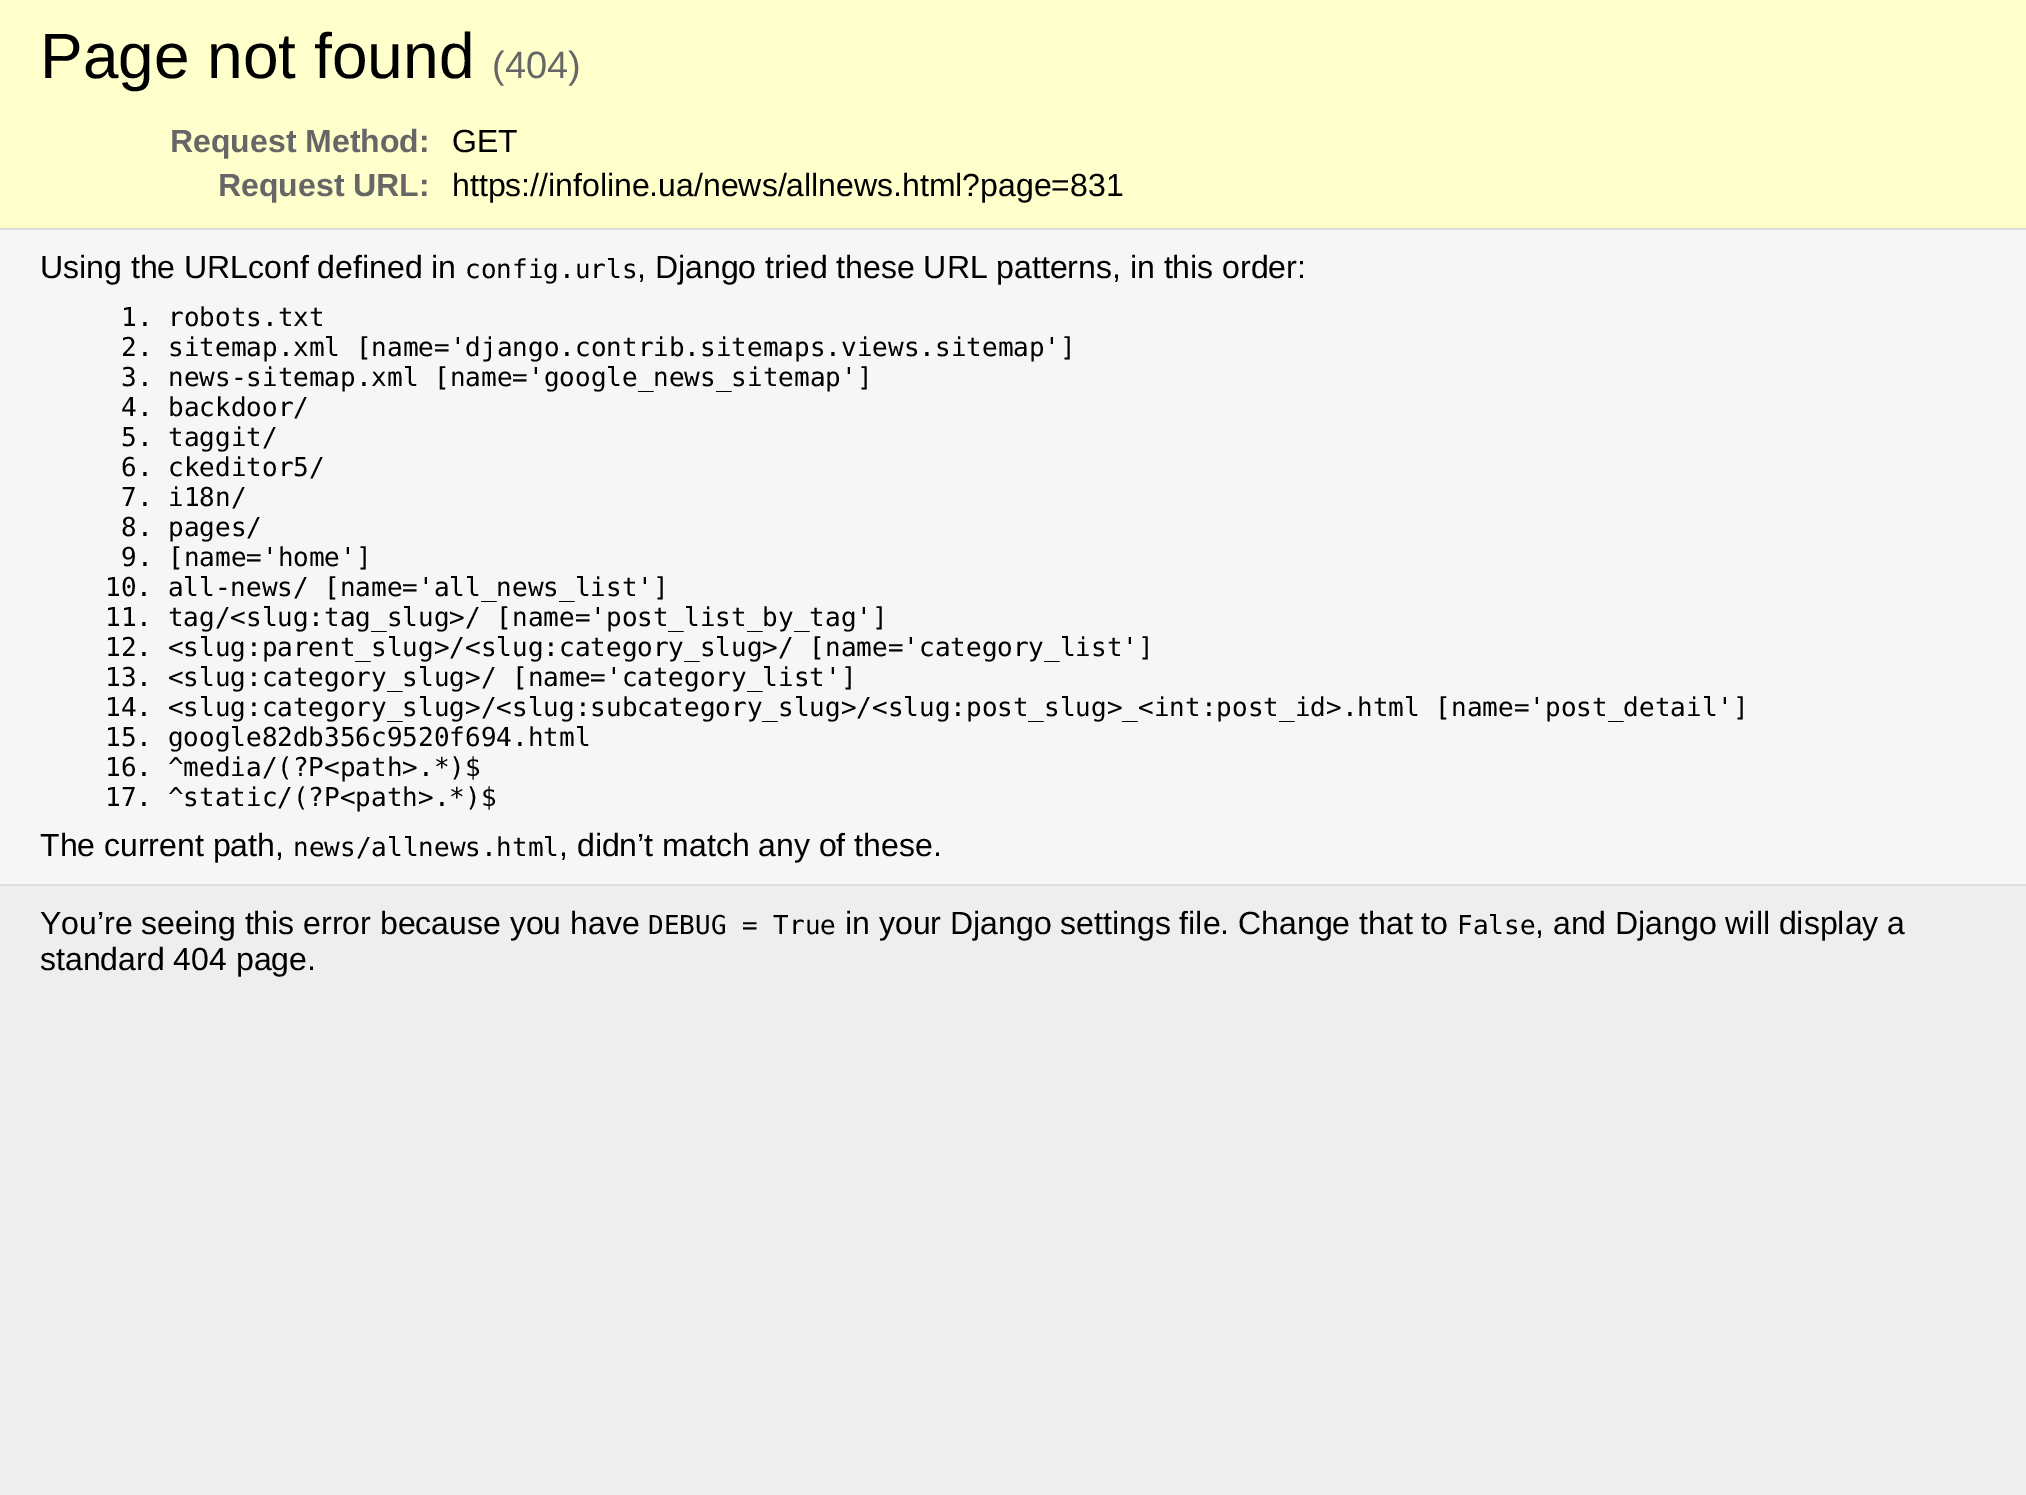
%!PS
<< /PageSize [2026 1495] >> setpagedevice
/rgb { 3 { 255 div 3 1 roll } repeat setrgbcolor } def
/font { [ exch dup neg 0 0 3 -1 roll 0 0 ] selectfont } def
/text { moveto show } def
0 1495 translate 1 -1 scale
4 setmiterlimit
238 238 238 rgb
0 0 2026 1495 rectfill
255 255 204 rgb
0 0 2026 228 rectfill
221 221 221 rgb
0 228 2026 2 rectfill
246 246 246 rgb
0 230 2026 654 rectfill
221 221 221 rgb
0 884 2026 2 rectfill
/LiberationSans-Regular 64 font
0 0 0 rgb
(Page not found) 40 78 text
/LiberationSans-Regular 38 font
102 102 102 rgb
(\(404\)) 492 78 text
/LiberationSans-Bold 32 font
(Request Method:) 170 152 text
/LiberationSans-Regular 32 font
0 0 0 rgb
(GET) 452 152 text
/LiberationSans-Bold 32 font
102 102 102 rgb
(Request URL:) 218 196 text
/LiberationSans-Regular 32 font
0 0 0 rgb
(https://infoline.ua/news/allnews.html?page=831) 452 196 text
(Using the URLconf defined in) 40 278 text
/DejaVuSansMono-Regular 26 font
(config.urls) 465 278 text
/LiberationSans-Regular 32 font
(, Django tried these URL patterns, in this order:) 637 278 text
/DejaVuSansMono-Regular 26 font
(1. robots.txt) 121 326 text
(2. sitemap.xml [name='django.contrib.sitemaps.views.sitemap']) 121 356 text
(3. news-sitemap.xml [name='google_news_sitemap']) 121 386 text
(4. backdoor/) 121 416 text
(5. taggit/) 121 446 text
(6. ckeditor5/) 121 476 text
(7. i18n/) 121 506 text
(8. pages/) 121 536 text
(9. [name='home']) 121 566 text
(10. all-news/ [name='all_news_list']) 105 596 text
(11. tag/<slug:tag_slug>/ [name='post_list_by_tag']) 105 626 text
(12. <slug:parent_slug>/<slug:category_slug>/ [name='category_list']) 105 656 text
(13. <slug:category_slug>/ [name='category_list']) 105 686 text
(14. <slug:category_slug>/<slug:subcategory_slug>/<slug:post_slug>_<int:post_id>.html [name='post_detail']) 105 716 text
(15. google82db356c9520f694.html) 105 746 text
(16. ^media/\(?P<path>.*\)$) 105 776 text
(17. ^static/\(?P<path>.*\)$) 105 806 text
/LiberationSans-Regular 32 font
(The current path,) 40 856 text
/DejaVuSansMono-Regular 26 font
(news/allnews.html) 293 856 text
/LiberationSans-Regular 32 font
(, didn’t match any of these.) 559 856 text
(You’re seeing this error because you have) 40 934 text
/DejaVuSansMono-Regular 26 font
(DEBUG = True) 648 934 text
/LiberationSans-Regular 32 font
(in your Django settings file. Change that to) 845 934 text
/DejaVuSansMono-Regular 26 font
(False) 1457 934 text
/LiberationSans-Regular 32 font
(, and Django will display a) 1535 934 text
(standard 404 page.) 40 970 text
showpage
